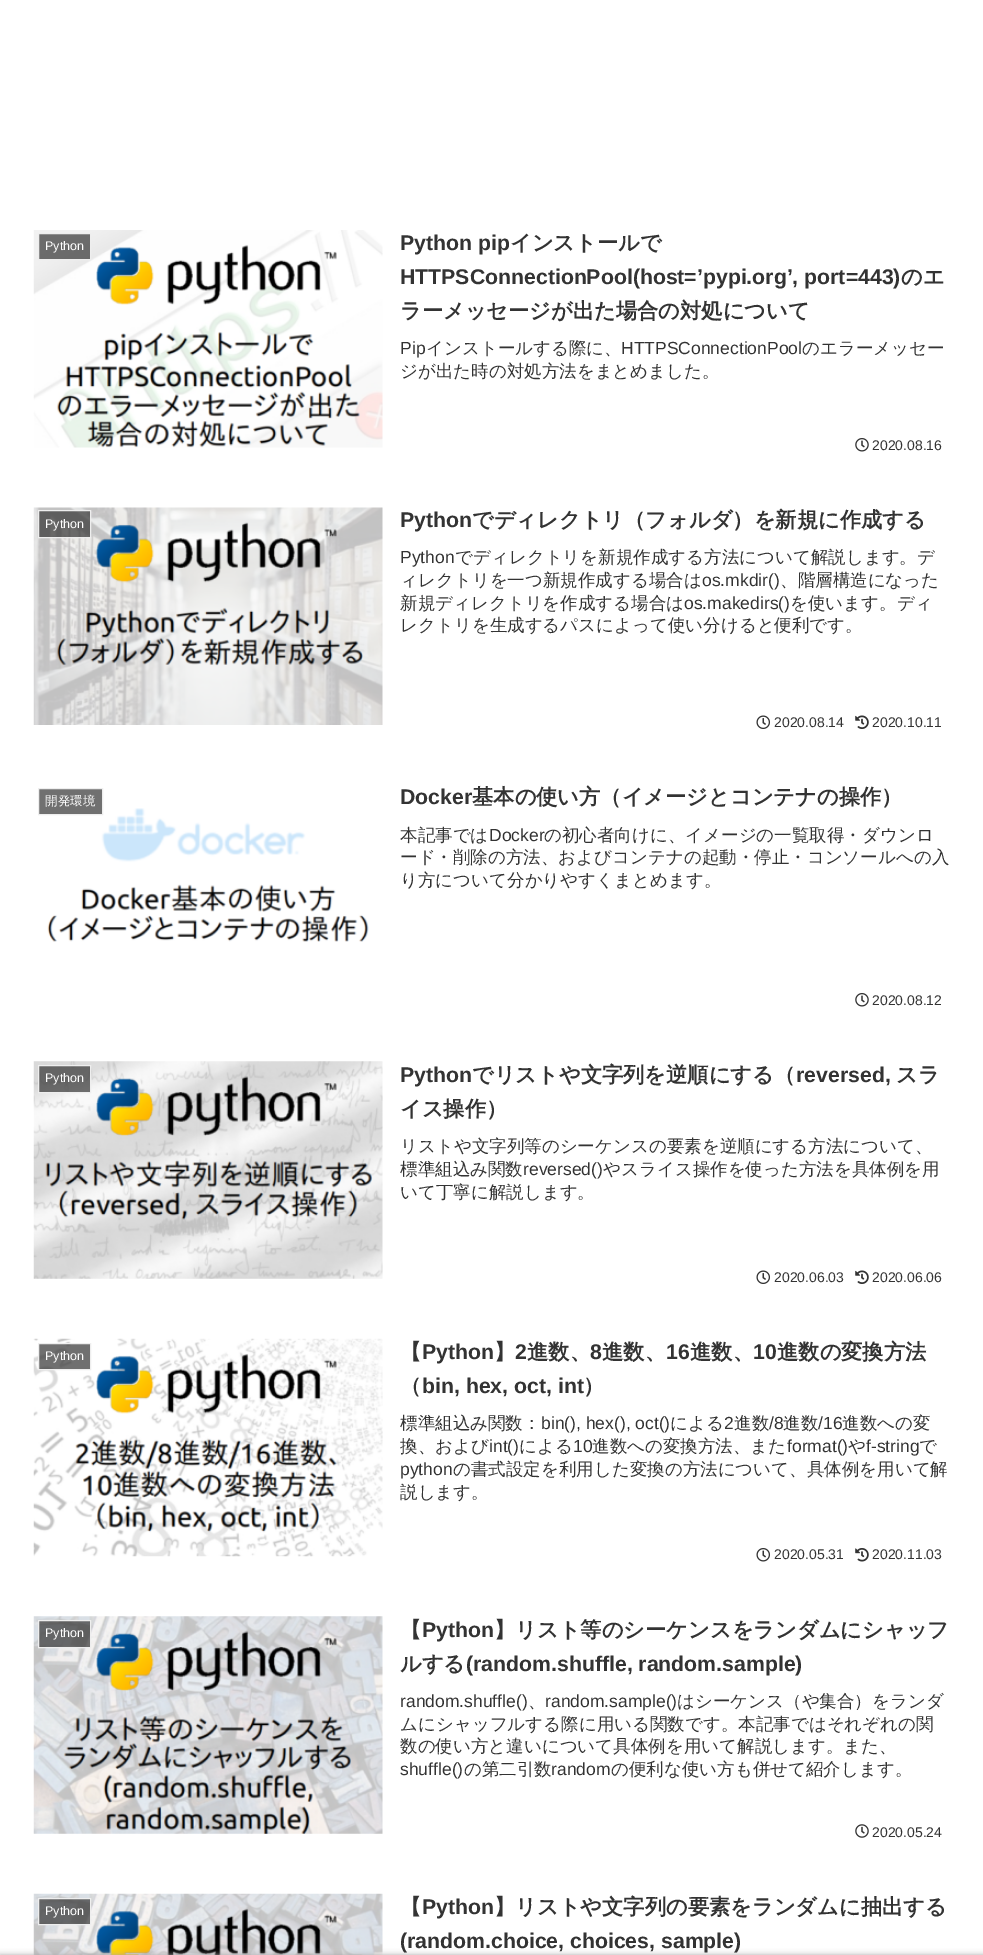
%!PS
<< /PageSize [983 1955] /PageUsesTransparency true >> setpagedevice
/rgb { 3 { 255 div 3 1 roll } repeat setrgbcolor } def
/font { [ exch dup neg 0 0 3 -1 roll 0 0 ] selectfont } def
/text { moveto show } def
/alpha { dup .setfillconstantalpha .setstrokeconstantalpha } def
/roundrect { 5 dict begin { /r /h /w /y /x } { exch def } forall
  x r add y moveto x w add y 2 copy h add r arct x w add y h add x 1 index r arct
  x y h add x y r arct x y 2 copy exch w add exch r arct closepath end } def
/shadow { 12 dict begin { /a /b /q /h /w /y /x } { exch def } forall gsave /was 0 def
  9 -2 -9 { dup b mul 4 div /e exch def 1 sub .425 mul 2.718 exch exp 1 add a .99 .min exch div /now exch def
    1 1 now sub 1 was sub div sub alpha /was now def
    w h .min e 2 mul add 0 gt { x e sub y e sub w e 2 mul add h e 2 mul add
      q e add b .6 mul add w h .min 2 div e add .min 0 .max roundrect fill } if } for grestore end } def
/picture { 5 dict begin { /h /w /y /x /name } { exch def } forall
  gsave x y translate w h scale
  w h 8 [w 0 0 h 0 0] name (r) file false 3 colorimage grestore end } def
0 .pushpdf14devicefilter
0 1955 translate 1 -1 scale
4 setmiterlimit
255 255 255 rgb
0 0 983 1955 rectfill
(img_01.rgb) 33 230 350 218 picture
0.7 alpha
51 51 51 rgb
38.5 233.5 moveto 52 0 rlineto 0 26 rlineto -52 0 rlineto closepath fill
1 alpha
238 238 238 rgb
38.5 233.5 moveto 52 0 rlineto 0 26 rlineto -52 0 rlineto closepath stroke
(img_02.rgb) 855 438 14 14 picture
(img_03.rgb) 33 507 350 218 picture
0.7 alpha
51 51 51 rgb
38.5 510.5 moveto 52 0 rlineto 0 27 rlineto -52 0 rlineto closepath fill
1 alpha
238 238 238 rgb
38.5 510.5 moveto 52 0 rlineto 0 27 rlineto -52 0 rlineto closepath stroke
(img_04.rgb) 756 715 14 14 picture
(img_05.rgb) 855 715 14 14 picture
(img_06.rgb) 47 808 322 134 picture
112 112 112 rgb
38.5 788.5 moveto 64 0 rlineto 0 26 rlineto -64 0 rlineto closepath gsave fill grestore
238 238 238 rgb
stroke
(img_02.rgb) 855 993 14 14 picture
(img_07.rgb) 33 1061 350 218 picture
0.7 alpha
51 51 51 rgb
38.5 1065.5 moveto 52 0 rlineto 0 27 rlineto -52 0 rlineto closepath fill
1 alpha
238 238 238 rgb
38.5 1065.5 moveto 52 0 rlineto 0 27 rlineto -52 0 rlineto closepath stroke
(img_04.rgb) 756 1270 14 14 picture
(img_05.rgb) 855 1270 14 14 picture
(img_08.rgb) 33 1338 350 219 picture
0.7 alpha
51 51 51 rgb
38.5 1343.5 moveto 52 0 rlineto 0 26 rlineto -52 0 rlineto closepath fill
1 alpha
238 238 238 rgb
38.5 1343.5 moveto 52 0 rlineto 0 26 rlineto -52 0 rlineto closepath stroke
(img_09.rgb) 756 1548 14 14 picture
(img_10.rgb) 855 1548 14 14 picture
(img_11.rgb) 33 1616 350 218 picture
0.7 alpha
51 51 51 rgb
38.5 1620.5 moveto 52 0 rlineto 0 27 rlineto -52 0 rlineto closepath fill
1 alpha
238 238 238 rgb
38.5 1620.5 moveto 52 0 rlineto 0 27 rlineto -52 0 rlineto closepath stroke
(img_12.rgb) 855 1824 14 14 picture
(img_13.rgb) 33 1893 350 62 picture
0.7 alpha
51 51 51 rgb
38.5 1898.5 moveto 52 0 rlineto 0 26 rlineto -52 0 rlineto closepath fill
1 alpha
238 238 238 rgb
38.5 1898.5 moveto 52 0 rlineto 0 26 rlineto -52 0 rlineto closepath stroke
169 169 169 rgb
0 1955 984 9 0 3 1 shadow
/LiberationSans-Regular 12.5 font
255 255 255 rgb
(Python) 45 250 text
/LiberationSans-Bold 21.25 font
51 51 51 rgb
(Python pip) 400 250 text
/WenQuanYiZenHei-Bold 21.25 font
(インストールで) 510 250 text
/LiberationSans-Bold 21.25 font
(HTTPSConnectionPool\(host=’pypi.org’, port=443\)) 400 284 text
/WenQuanYiZenHei-Bold 21.25 font
(のエ) 901 284 text
(ラーメッセージが出た場合の対処について) 400 318 text
/LiberationSans-Regular 17.5 font
(Pip) 400 354 text
/WenQuanYiZenHei-Medium 17.5 font
(インストールする際に、) 426 354 text
/LiberationSans-Regular 17.5 font
(HTTPSConnectionPool) 621 354 text
/WenQuanYiZenHei-Medium 17.5 font
(のエラーメッセー) 802 354 text
(ジが出た時の対処方法をまとめました。) 400 377 text
/LiberationSans-Regular 14 font
(2020.08.16) 872 450 text
/LiberationSans-Regular 12.5 font
255 255 255 rgb
(Python) 45 528 text
/LiberationSans-Bold 21.25 font
51 51 51 rgb
(Python) 400 527 text
/WenQuanYiZenHei-Bold 21.25 font
(でディレクトリ（フォルダ）を新規に作成する) 472 527 text
/LiberationSans-Regular 17.5 font
(Python) 400 563 text
/WenQuanYiZenHei-Medium 17.5 font
(でディレクトリを新規作成する方法について解説します。デ) 455 563 text
(ィレクトリを一つ新規作成する場合は) 400 586 text
/LiberationSans-Regular 17.5 font
(os.mkdir\(\)) 702 586 text
/WenQuanYiZenHei-Medium 17.5 font
(、階層構造になった) 780 586 text
(新規ディレクトリを作成する場合は) 400 609 text
/LiberationSans-Regular 17.5 font
(os.makedirs\(\)) 684 609 text
/WenQuanYiZenHei-Medium 17.5 font
(を使います。ディ) 790 609 text
(レクトリを生成するパスによって使い分けると便利です。) 400 631 text
/LiberationSans-Regular 14 font
(2020.08.14) 774 727 text
(2020.10.11) 872 727 text
/WenQuanYiZenHei-Medium 12.5 font
255 255 255 rgb
(開発環境) 45 805 text
/LiberationSans-Bold 21.25 font
51 51 51 rgb
(Docker) 400 804 text
/WenQuanYiZenHei-Bold 21.25 font
(基本の使い方（イメージとコンテナの操作）) 472 804 text
/WenQuanYiZenHei-Medium 17.5 font
(本記事では) 400 841 text
/LiberationSans-Regular 17.5 font
(Docker) 489 841 text
/WenQuanYiZenHei-Medium 17.5 font
(の初心者向けに、イメージの一覧取得・ダウンロ) 544 841 text
(ード・削除の方法、およびコンテナの起動・停止・コンソールへの入) 400 863 text
(り方について分かりやすくまとめます。) 400 886 text
/LiberationSans-Regular 14 font
(2020.08.12) 872 1005 text
/LiberationSans-Regular 12.5 font
255 255 255 rgb
(Python) 45 1082 text
/LiberationSans-Bold 21.25 font
51 51 51 rgb
(Python) 400 1082 text
/WenQuanYiZenHei-Bold 21.25 font
(でリストや文字列を逆順にする（) 472 1082 text
/LiberationSans-Bold 21.25 font
(reversed,) 796 1082 text
/WenQuanYiZenHei-Bold 21.25 font
(スラ) 896 1082 text
(イス操作）) 400 1116 text
/WenQuanYiZenHei-Medium 17.5 font
(リストや文字列等のシーケンスの要素を逆順にする方法について、) 400 1152 text
(標準組込み関数) 400 1175 text
/LiberationSans-Regular 17.5 font
(reversed\(\)) 523 1175 text
/WenQuanYiZenHei-Medium 17.5 font
(やスライス操作を使った方法を具体例を用) 603 1175 text
(いて丁寧に解説します。) 400 1198 text
/LiberationSans-Regular 14 font
(2020.06.03) 774 1282 text
(2020.06.06) 872 1282 text
/LiberationSans-Regular 12.5 font
255 255 255 rgb
(Python) 45 1360 text
/WenQuanYiZenHei-Bold 21.25 font
51 51 51 rgb
(【) 400 1359 text
/LiberationSans-Bold 21.25 font
(Python) 422 1359 text
/WenQuanYiZenHei-Bold 21.25 font
(】) 494 1359 text
/LiberationSans-Bold 21.25 font
(2) 515 1359 text
/WenQuanYiZenHei-Bold 21.25 font
(進数、) 527 1359 text
/LiberationSans-Bold 21.25 font
(8) 590 1359 text
/WenQuanYiZenHei-Bold 21.25 font
(進数、) 602 1359 text
/LiberationSans-Bold 21.25 font
(16) 666 1359 text
/WenQuanYiZenHei-Bold 21.25 font
(進数、) 690 1359 text
/LiberationSans-Bold 21.25 font
(10) 753 1359 text
/WenQuanYiZenHei-Bold 21.25 font
(進数の変換方法) 777 1359 text
(（) 400 1393 text
/LiberationSans-Bold 21.25 font
(bin, hex, oct, int) 422 1393 text
/WenQuanYiZenHei-Bold 21.25 font
(）) 583 1393 text
/WenQuanYiZenHei-Medium 17.5 font
(標準組込み関数：) 400 1429 text
/LiberationSans-Regular 17.5 font
(bin\(\), hex\(\), oct\(\)) 541 1429 text
/WenQuanYiZenHei-Medium 17.5 font
(による) 670 1429 text
/LiberationSans-Regular 17.5 font
(2) 724 1429 text
/WenQuanYiZenHei-Medium 17.5 font
(進数) 734 1429 text
/LiberationSans-Regular 17.5 font
(/8) 769 1429 text
/WenQuanYiZenHei-Medium 17.5 font
(進数) 783 1429 text
/LiberationSans-Regular 17.5 font
(/16) 818 1429 text
/WenQuanYiZenHei-Medium 17.5 font
(進数への変) 842 1429 text
(換、および) 400 1452 text
/LiberationSans-Regular 17.5 font
(int\(\)) 489 1452 text
/WenQuanYiZenHei-Medium 17.5 font
(による) 519 1452 text
/LiberationSans-Regular 17.5 font
(10) 573 1452 text
/WenQuanYiZenHei-Medium 17.5 font
(進数への変換方法、また) 592 1452 text
/LiberationSans-Regular 17.5 font
(format\(\)) 787 1452 text
/WenQuanYiZenHei-Medium 17.5 font
(や) 848 1452 text
/LiberationSans-Regular 17.5 font
(f-string) 866 1452 text
/WenQuanYiZenHei-Medium 17.5 font
(で) 919 1452 text
/LiberationSans-Regular 17.5 font
(python) 400 1475 text
/WenQuanYiZenHei-Medium 17.5 font
(の書式設定を利用した変換の方法について、具体例を用いて解) 453 1475 text
(説します。) 400 1498 text
/LiberationSans-Regular 14 font
(2020.05.31) 774 1559 text
(2020.11.03) 872 1559 text
/LiberationSans-Regular 12.5 font
255 255 255 rgb
(Python) 45 1637 text
/WenQuanYiZenHei-Bold 21.25 font
51 51 51 rgb
(【) 400 1637 text
/LiberationSans-Bold 21.25 font
(Python) 422 1637 text
/WenQuanYiZenHei-Bold 21.25 font
(】リスト等のシーケンスをランダムにシャッフ) 494 1637 text
(ルする) 400 1671 text
/LiberationSans-Bold 21.25 font
(\(random.shuffle, random.sample\)) 466 1671 text
/LiberationSans-Regular 17.5 font
(random.shuffle\(\)) 400 1707 text
/WenQuanYiZenHei-Medium 17.5 font
(、) 528 1707 text
/LiberationSans-Regular 17.5 font
(random.sample\(\)) 545 1707 text
/WenQuanYiZenHei-Medium 17.5 font
(はシーケンス（や集合）をランダ) 677 1707 text
(ムにシャッフルする際に用いる関数です。本記事ではそれぞれの関) 400 1730 text
(数の使い方と違いについて具体例を用いて解説します。また、) 400 1752 text
/LiberationSans-Regular 17.5 font
(shuffle\(\)) 400 1775 text
/WenQuanYiZenHei-Medium 17.5 font
(の第二引数) 464 1775 text
/LiberationSans-Regular 17.5 font
(random) 551 1775 text
/WenQuanYiZenHei-Medium 17.5 font
(の便利な使い方も併せて紹介します。) 611 1775 text
/LiberationSans-Regular 14 font
(2020.05.24) 872 1837 text
/LiberationSans-Regular 12.5 font
255 255 255 rgb
(Python) 45 1915 text
/WenQuanYiZenHei-Bold 21.25 font
51 51 51 rgb
(【) 400 1914 text
/LiberationSans-Bold 21.25 font
(Python) 422 1914 text
/WenQuanYiZenHei-Bold 21.25 font
(】リストや文字列の要素をランダムに抽出する) 494 1914 text
/LiberationSans-Bold 21.25 font
(\(random.choice, choices, sample\)) 400 1948 text
.poppdf14devicefilter showpage
